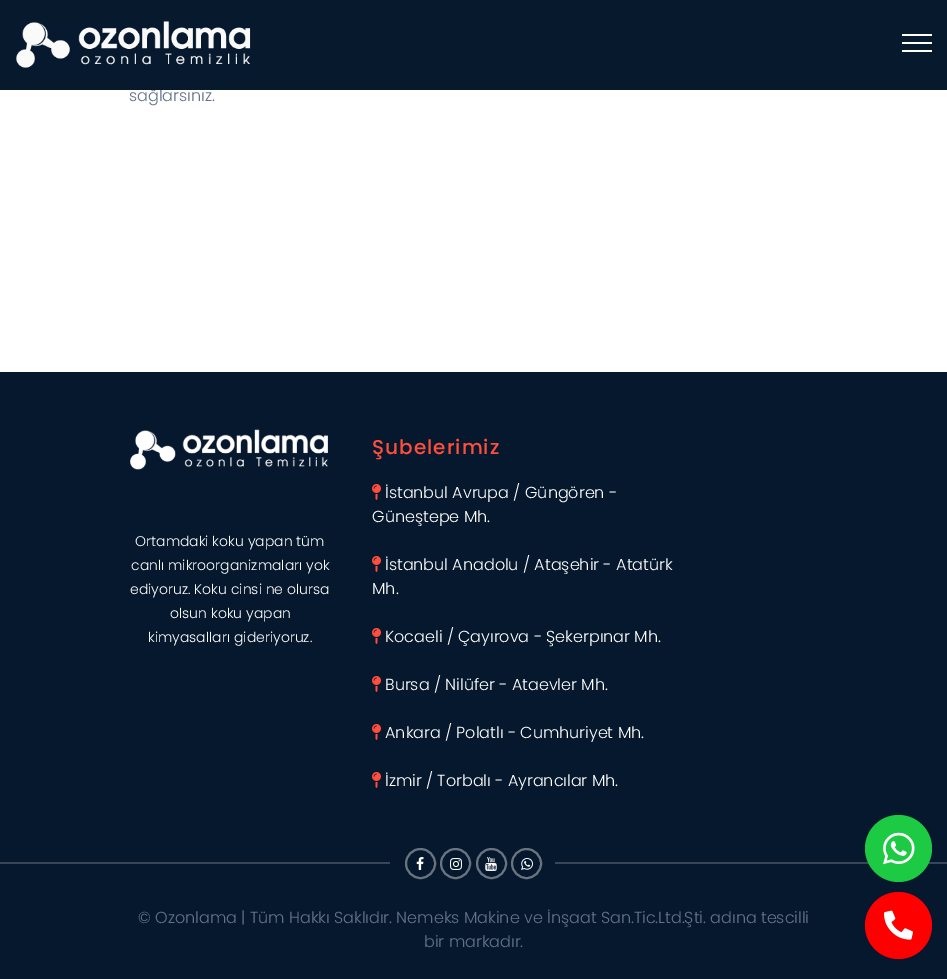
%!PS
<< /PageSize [947 979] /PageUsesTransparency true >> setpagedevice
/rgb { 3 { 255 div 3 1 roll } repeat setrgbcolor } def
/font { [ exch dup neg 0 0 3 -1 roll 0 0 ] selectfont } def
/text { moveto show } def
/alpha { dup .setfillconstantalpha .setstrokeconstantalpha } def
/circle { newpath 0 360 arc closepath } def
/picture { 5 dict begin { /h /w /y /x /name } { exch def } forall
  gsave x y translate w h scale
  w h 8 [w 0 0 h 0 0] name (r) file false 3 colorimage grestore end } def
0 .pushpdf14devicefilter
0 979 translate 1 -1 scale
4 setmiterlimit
255 255 255 rgb
0 0 947 979 rectfill
6 24 45 rgb
0 372 947 607 rectfill
(img_02.rgb) 130 429 198 41 picture
(img_03.rgb) 372 484 9 16 picture
(img_03.rgb) 372 556 9 16 picture
(img_03.rgb) 372 628 9 16 picture
(img_03.rgb) 372 676 9 16 picture
(img_03.rgb) 372 724 9 16 picture
(img_03.rgb) 372 772 9 16 picture
56 70 87 rgb
0 862 390 2 rectfill
106 116 129 rgb
2 setlinewidth
420.5 863.5 14.5 circle stroke
(img_04.rgb) 416 857 8 13 picture
455.5 863.5 14.5 circle stroke
(img_05.rgb) 450 858 12 12 picture
491.5 863.5 14.5 circle stroke
(img_06.rgb) 485 857 12 14 picture
526.5 863.5 14.5 circle stroke
(img_07.rgb) 521 858 12 12 picture
56 70 87 rgb
555 862 392 2 rectfill
28 202 67 rgb
898.5 848.5 33.5 circle fill
(img_08.rgb) 883 832 32 33 picture
255 0 0 rgb
898.5 925.5 33.5 circle fill
(img_09.rgb) 884 910 29 30 picture
/Poppins-Light 16 font
97 114 138 rgb
(sağlarsınız.) 129 101 text
0.98 alpha
6 24 45 rgb
0 0 947 90 rectfill
0.88 alpha
0 0 947 90 rectfill
1 alpha
255 255 255 rgb
902 50 30 2 rectfill
902 34 30 2 rectfill
902 42 30 2 rectfill
(img_01.rgb) 16 21 235 47 picture
/Poppins-Light 14 font
(Ortamdaki koku yapan tüm) 135 546 text
(canlı mikroorganizmaları yok) 131 570 text
(ediyoruz. Koku cinsi ne olursa) 130 594 text
(olsun koku yapan) 170 618 text
(kimyasalları gideriyoruz.) 148 642 text
/Poppins-Medium 20 font
255 78 60 rgb
372 454 moveto 1 0 (Şubelerimiz) ashow
/Poppins-Light 16 font
255 255 255 rgb
(İstanbul Avrupa / Güngören -) 385 498 text
(Güneştepe Mh.) 372 522 text
(İstanbul Anadolu / Ataşehir - Atatürk) 385 570 text
(Mh.) 372 594 text
(Kocaeli / Çayırova - Şekerpınar Mh.) 385 642 text
(Bursa / Nilüfer - Ataevler Mh.) 385 690 text
(Ankara / Polatlı - Cumhuriyet Mh.) 385 738 text
(İzmir / Torbalı - Ayrancılar Mh.) 385 786 text
97 114 138 rgb
(© Ozonlama | Tüm Hakkı Saklıdır. Nemeks Makine ve İnşaat San.Tic.Ltd.Şti. adına tescilli) 138 923 text
(bir markadır.) 424 947 text
.poppdf14devicefilter showpage
